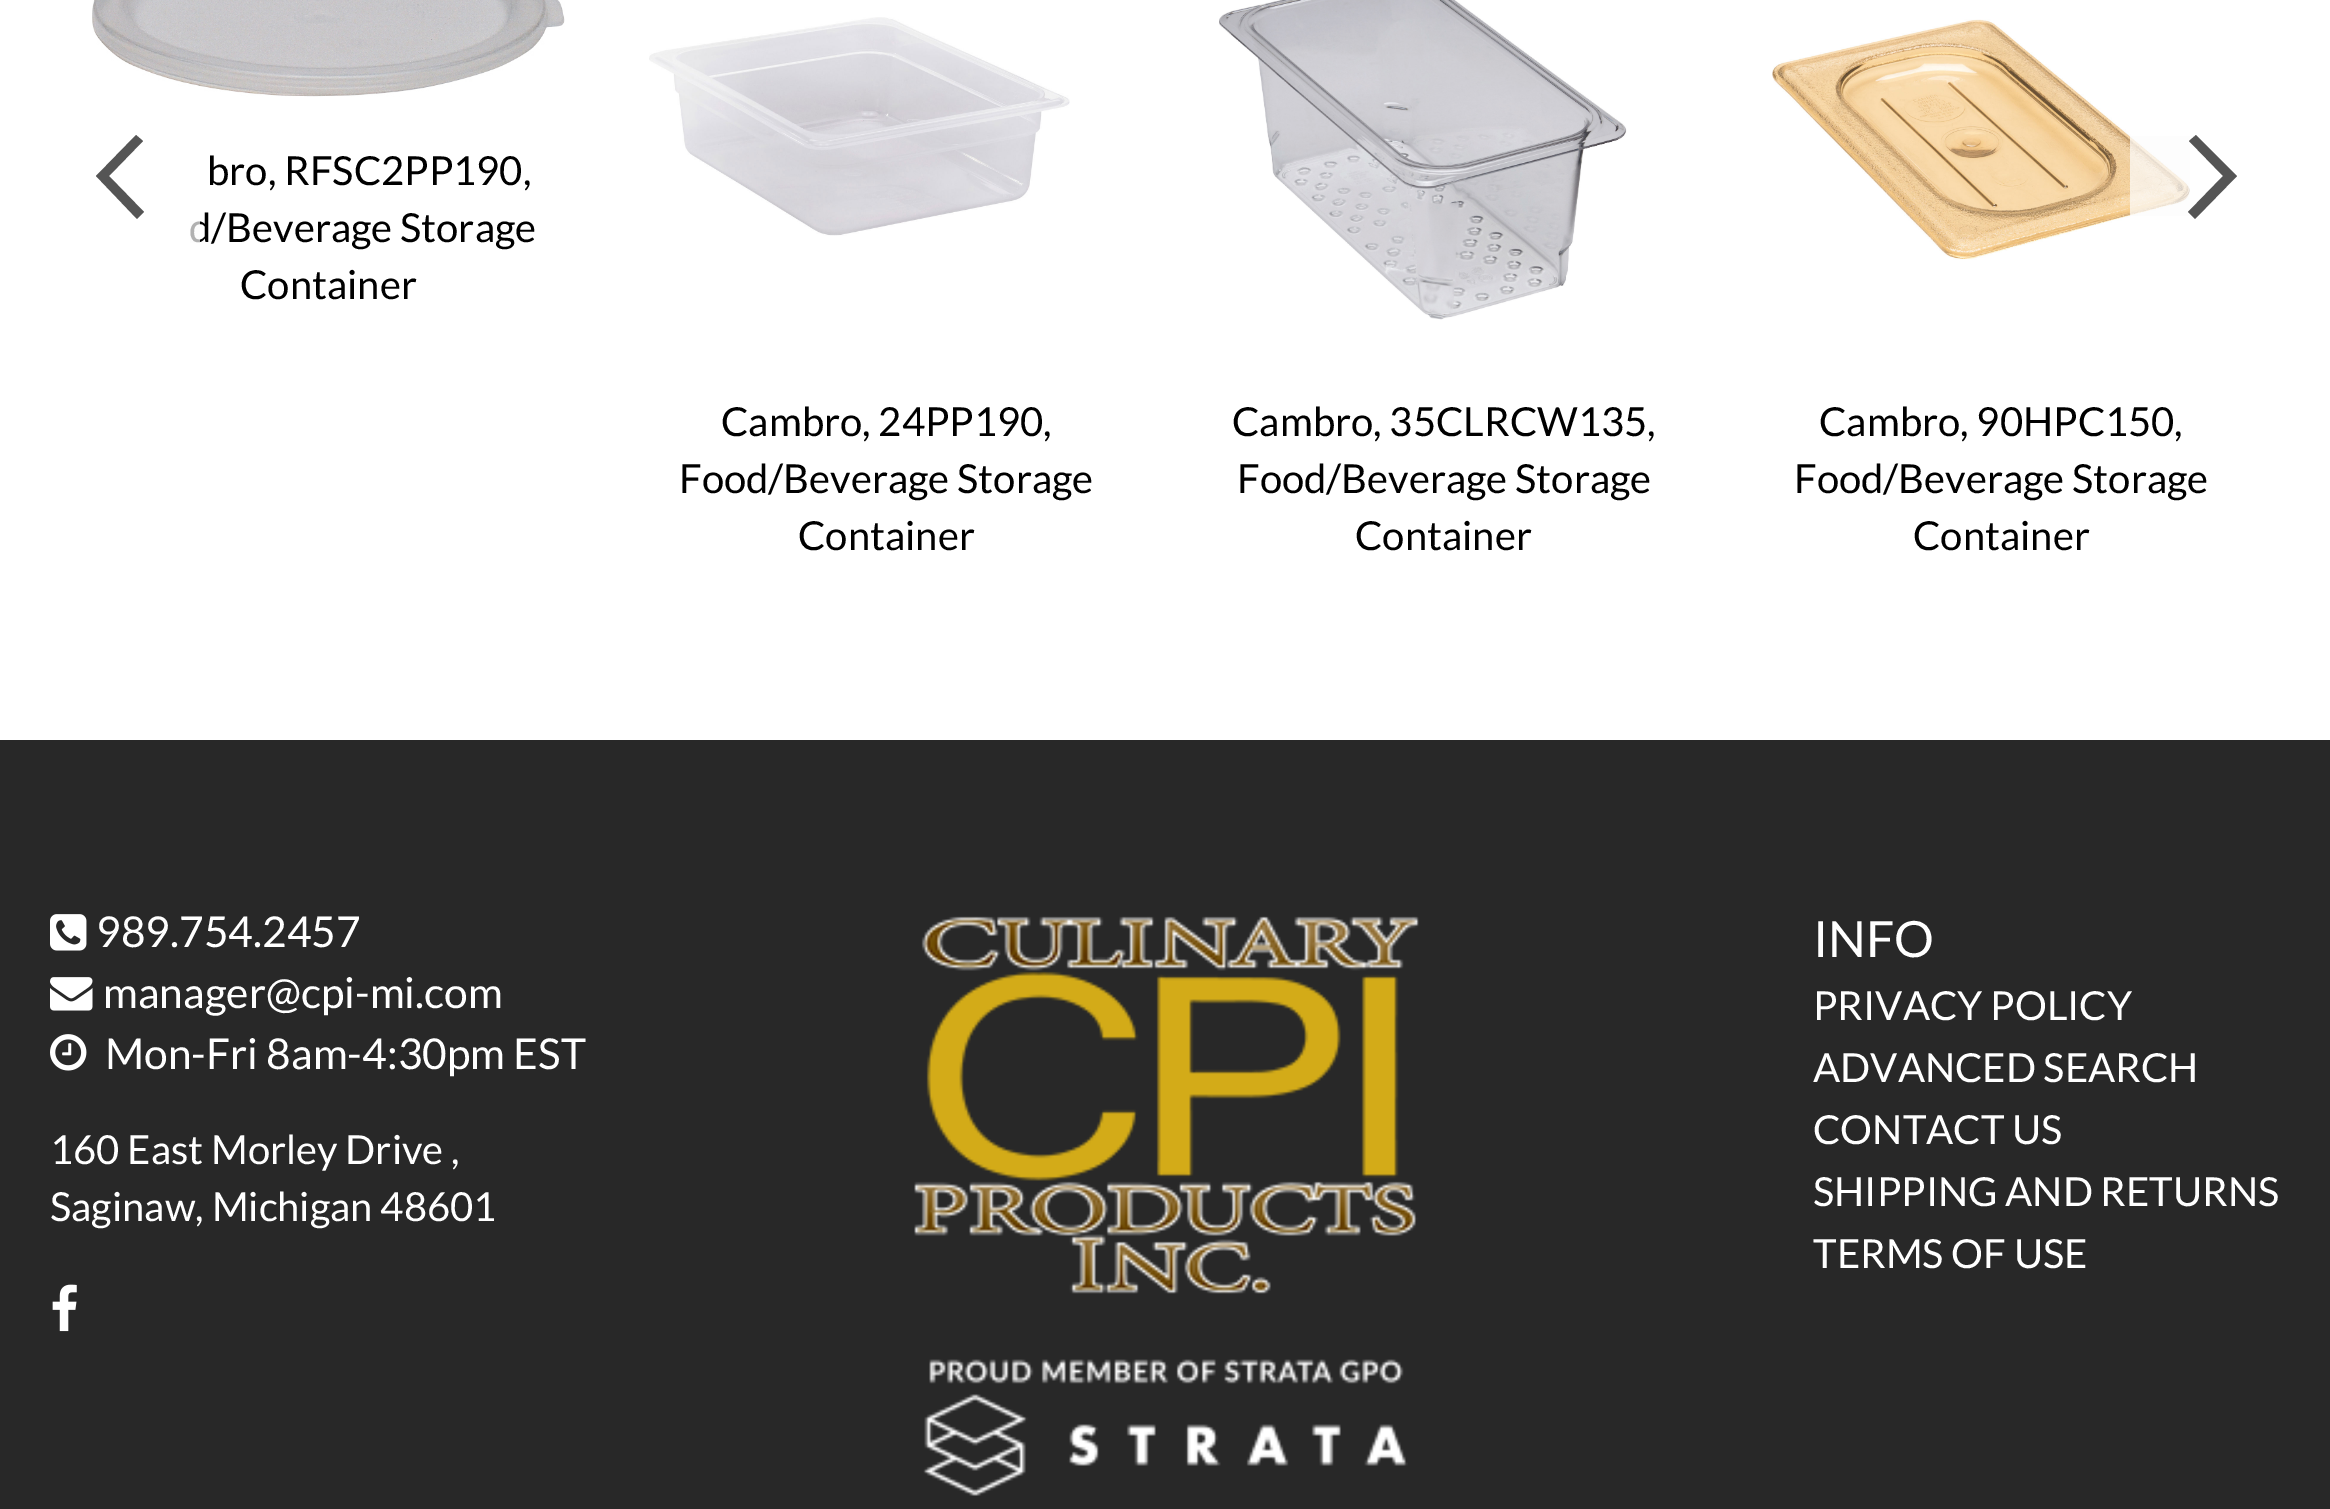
%!PS
<< /PageSize [2330 1509] /PageUsesTransparency true >> setpagedevice
/rgb { 3 { 255 div 3 1 roll } repeat setrgbcolor } def
/font { [ exch dup neg 0 0 3 -1 roll 0 0 ] selectfont } def
/text { moveto show } def
/alpha { dup .setfillconstantalpha .setstrokeconstantalpha } def
/picture { 5 dict begin { /h /w /y /x /name } { exch def } forall
  gsave x y translate w h scale
  w h 8 [w 0 0 h 0 0] name (r) file false 3 colorimage grestore end } def
0 .pushpdf14devicefilter
0 1509 translate 1 -1 scale
4 setmiterlimit
255 255 255 rgb
0 0 2330 1509 rectfill
85 85 85 rgb
109 176 moveto 35 36 rlineto -7 7 rlineto -41 -43 rlineto 40 -41 rlineto 7 6 rlineto closepath fill
(img_04.rgb) 1772 19 418 241 picture
0.7 alpha
252 252 252 rgb
2130 136 60 80 rectfill
1 alpha
85 85 85 rgb
2237 176 moveto -42 43 rlineto -7 -7 rlineto 35 -36 rlineto -34 -35 rlineto 7 -6 rlineto closepath fill
(img_01.rgb) 92 0 473 97 picture
(img_02.rgb) 649 17 421 219 picture
(img_03.rgb) 1219 0 408 320 picture
40 40 40 rgb
0 740 2330 769 rectfill
(img_05.rgb) 50 914 37 37 picture
(img_06.rgb) 50 977 43 34 picture
(img_07.rgb) 50 1034 37 37 picture
(img_08.rgb) 52 1284 25 48 picture
(img_09.rgb) 914 916 505 378 picture
(img_10.rgb) 923 1359 485 137 picture
/Lato-Regular 40 font
0 0 0 rgb
(bro, RFSC2PP190,) 207 185 text
(d/Beverage Storage) 189 242 text
0.7 alpha
252 252 252 rgb
190 221 10 22 rectfill
1 alpha
0 0 0 rgb
(Container) 240 299 text
(Cambro, 24PP190,) 721 436 text
(Food/Beverage Storage) 679 493 text
(Container) 798 550 text
(Cambro, 35CLRCW135,) 1232 436 text
(Food/Beverage Storage) 1237 493 text
(Container) 1355 550 text
(Cambro, 90HPC150,) 1819 436 text
(Food/Beverage Storage) 1794 493 text
(Container) 1913 550 text
/Lato-Regular 42.5 font
255 255 255 rgb
(989.754.2457) 96 947 text
(manager@cpi-mi.com) 103 1008 text
(Mon-Fri 8am-4:30pm EST) 105 1069 text
/Lato-Regular 40 font
(160 East Morley Drive ,) 50 1164 text
(Saginaw, Michigan 48601) 50 1221 text
/Lato-Regular 50 font
(INFO) 1813 957 text
/Lato-Regular 40 font
(PRIVACY POLICY) 1813 1020 text
(ADVANCED SEARCH) 1813 1082 text
(CONTACT US) 1813 1144 text
(SHIPPING AND RETURNS) 1813 1206 text
(TERMS OF USE) 1813 1268 text
.poppdf14devicefilter showpage
